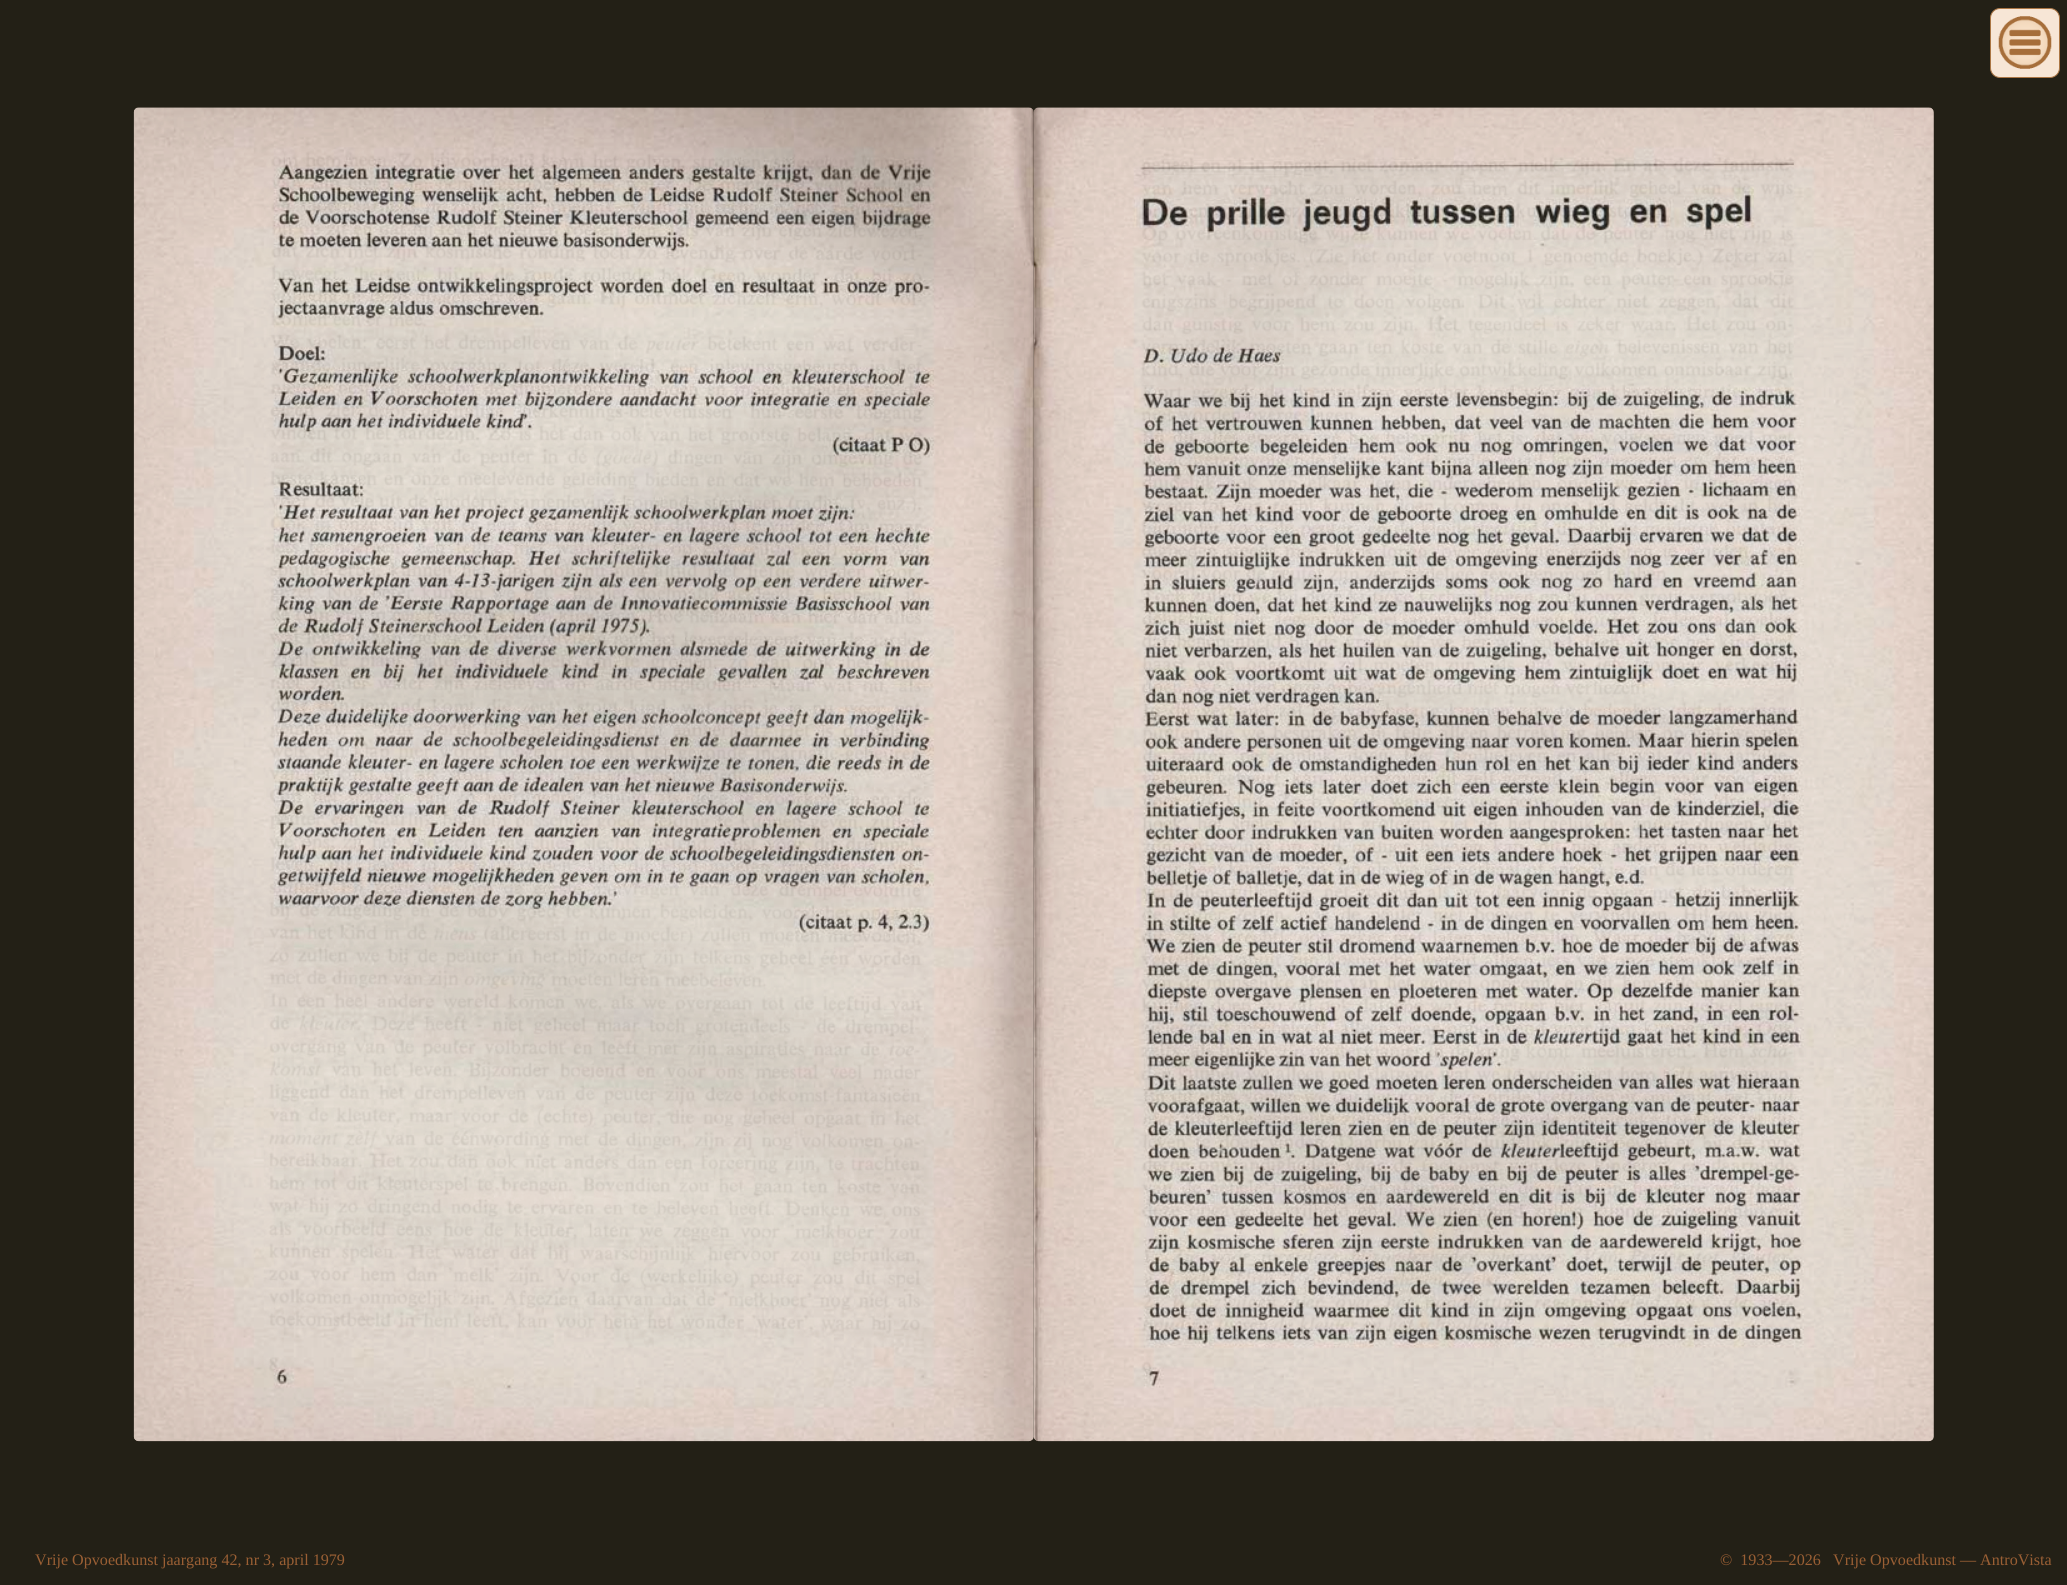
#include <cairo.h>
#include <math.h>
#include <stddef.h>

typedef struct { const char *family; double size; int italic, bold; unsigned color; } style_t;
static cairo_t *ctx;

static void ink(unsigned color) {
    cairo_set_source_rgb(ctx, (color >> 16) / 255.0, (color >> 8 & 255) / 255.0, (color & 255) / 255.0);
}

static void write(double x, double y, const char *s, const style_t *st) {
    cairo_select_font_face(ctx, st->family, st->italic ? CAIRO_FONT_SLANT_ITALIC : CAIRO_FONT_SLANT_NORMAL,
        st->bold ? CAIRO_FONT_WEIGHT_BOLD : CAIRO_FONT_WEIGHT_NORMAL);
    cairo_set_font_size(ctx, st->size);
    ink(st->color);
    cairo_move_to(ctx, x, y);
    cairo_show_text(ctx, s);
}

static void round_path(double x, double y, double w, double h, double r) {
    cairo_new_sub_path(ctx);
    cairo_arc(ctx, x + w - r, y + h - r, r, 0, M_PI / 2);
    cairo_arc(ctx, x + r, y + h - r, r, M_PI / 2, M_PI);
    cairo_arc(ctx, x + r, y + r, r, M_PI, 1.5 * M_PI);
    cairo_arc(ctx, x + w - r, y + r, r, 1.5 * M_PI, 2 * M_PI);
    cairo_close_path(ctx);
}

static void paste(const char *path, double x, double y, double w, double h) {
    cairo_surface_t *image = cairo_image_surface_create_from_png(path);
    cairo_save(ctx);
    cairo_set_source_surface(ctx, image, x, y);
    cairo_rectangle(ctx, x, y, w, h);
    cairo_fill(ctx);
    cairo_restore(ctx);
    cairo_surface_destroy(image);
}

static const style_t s1 = {"Liberation Serif", 16.1, 0, 0, 0x9a5f34};

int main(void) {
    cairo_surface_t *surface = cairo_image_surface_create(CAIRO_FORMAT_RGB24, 2067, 1585);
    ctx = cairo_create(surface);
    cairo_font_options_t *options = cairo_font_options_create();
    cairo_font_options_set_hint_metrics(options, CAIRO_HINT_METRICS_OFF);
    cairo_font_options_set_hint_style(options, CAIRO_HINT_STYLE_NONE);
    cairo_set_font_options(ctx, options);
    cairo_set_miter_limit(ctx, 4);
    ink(0x232016);
    cairo_paint(ctx);
    ink(0xf7e6d6);
    round_path(1990.5, 8.5, 69, 69, 9.5);
    cairo_fill_preserve(ctx);
    ink(0xab7644);
    cairo_set_line_width(ctx, 1);
    cairo_stroke(ctx);
    paste("pic1.png", 1998, 16, 54, 53);
    paste("pic2.png", 133, 107, 901, 1335);
    paste("pic4.png", 1033, 107, 901, 1335);
    paste("pic3.png", 133, 107, 901, 1335);
    paste("pic5.png", 1033, 107, 901, 1335);
    write(35, 1565, "Vrije Opvoedkunst jaargang 42, nr 3, april 1979", &s1);
    write(1720, 1565, "©  1933—2026", &s1);
    write(1833, 1565, "Vrije Opvoedkunst — AntroVista", &s1);
    cairo_surface_write_to_png(surface, "screenshot.png");
    cairo_font_options_destroy(options);
    cairo_destroy(ctx);
    cairo_surface_destroy(surface);
    return 0;
}
